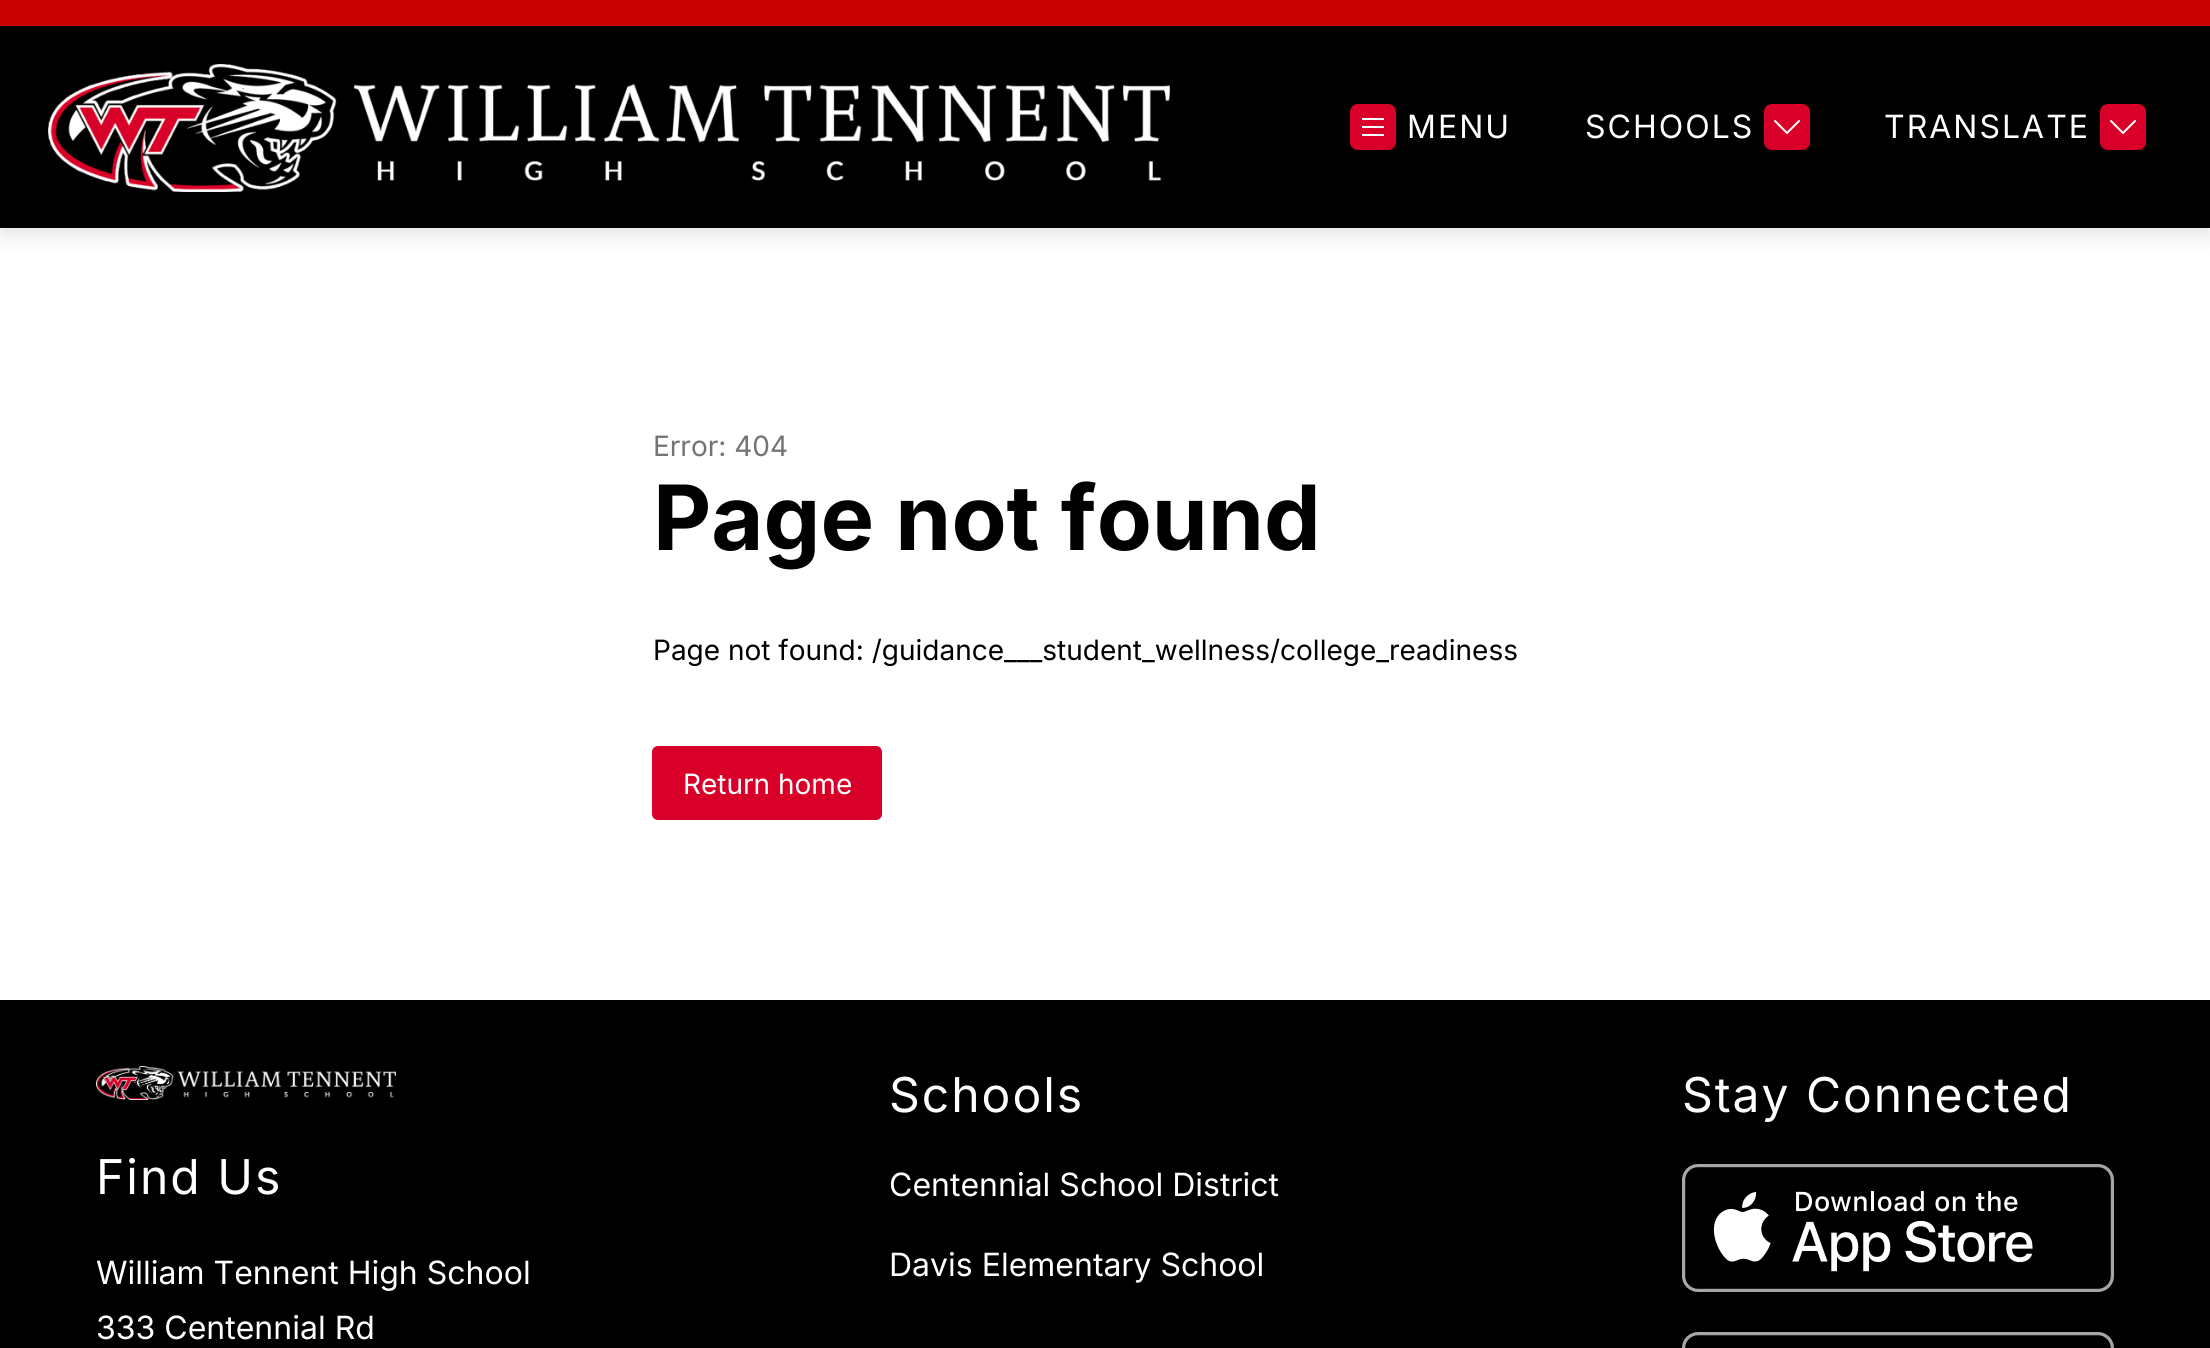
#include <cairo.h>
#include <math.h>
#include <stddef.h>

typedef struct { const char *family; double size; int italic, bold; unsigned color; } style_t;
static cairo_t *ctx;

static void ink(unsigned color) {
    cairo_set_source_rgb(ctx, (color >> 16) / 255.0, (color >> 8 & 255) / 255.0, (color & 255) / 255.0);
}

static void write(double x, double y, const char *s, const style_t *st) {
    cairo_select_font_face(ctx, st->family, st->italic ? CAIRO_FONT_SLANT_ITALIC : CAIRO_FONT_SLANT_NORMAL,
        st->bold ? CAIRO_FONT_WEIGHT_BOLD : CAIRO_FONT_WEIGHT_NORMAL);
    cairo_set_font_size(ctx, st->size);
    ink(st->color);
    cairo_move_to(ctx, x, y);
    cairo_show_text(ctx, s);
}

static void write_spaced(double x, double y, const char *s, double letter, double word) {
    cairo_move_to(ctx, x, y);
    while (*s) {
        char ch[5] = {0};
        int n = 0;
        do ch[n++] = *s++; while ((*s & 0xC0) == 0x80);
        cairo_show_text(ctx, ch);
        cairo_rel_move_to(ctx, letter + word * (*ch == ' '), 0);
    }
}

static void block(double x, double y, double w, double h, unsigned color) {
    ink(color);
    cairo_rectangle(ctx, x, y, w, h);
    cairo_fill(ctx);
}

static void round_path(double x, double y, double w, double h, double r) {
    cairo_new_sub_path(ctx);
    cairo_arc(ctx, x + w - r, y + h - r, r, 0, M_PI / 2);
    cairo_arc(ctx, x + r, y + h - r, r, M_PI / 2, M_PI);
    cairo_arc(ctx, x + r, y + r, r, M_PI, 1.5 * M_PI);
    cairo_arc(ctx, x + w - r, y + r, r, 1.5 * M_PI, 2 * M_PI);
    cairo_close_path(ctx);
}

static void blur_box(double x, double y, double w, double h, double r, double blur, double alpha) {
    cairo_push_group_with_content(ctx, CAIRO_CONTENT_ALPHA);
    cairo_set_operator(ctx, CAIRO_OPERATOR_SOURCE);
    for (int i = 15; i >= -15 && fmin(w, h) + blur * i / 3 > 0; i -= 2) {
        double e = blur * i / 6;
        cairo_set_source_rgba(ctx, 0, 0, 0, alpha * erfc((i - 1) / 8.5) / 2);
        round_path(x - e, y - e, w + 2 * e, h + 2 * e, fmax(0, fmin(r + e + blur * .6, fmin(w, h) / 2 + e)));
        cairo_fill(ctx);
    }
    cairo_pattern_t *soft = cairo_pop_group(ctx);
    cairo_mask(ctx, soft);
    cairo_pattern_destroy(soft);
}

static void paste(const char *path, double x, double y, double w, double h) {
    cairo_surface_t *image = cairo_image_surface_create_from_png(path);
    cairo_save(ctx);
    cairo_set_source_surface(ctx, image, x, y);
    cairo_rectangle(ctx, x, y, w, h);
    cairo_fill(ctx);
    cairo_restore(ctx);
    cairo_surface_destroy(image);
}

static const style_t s1 = {"Inter", 28, 0, 0, 0x747474};
static const style_t s2 = {"Inter", 90, 0, 1, 0x000000};
static const style_t s3 = {"Inter", 28, 0, 0, 0x000000};
static const style_t s4 = {"Inter", 28, 0, 0, 0xffffff};
static const style_t s5 = {"Inter", 32, 0, 0, 0xffffff};

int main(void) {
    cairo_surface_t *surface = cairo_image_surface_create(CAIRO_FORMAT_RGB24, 2210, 1348);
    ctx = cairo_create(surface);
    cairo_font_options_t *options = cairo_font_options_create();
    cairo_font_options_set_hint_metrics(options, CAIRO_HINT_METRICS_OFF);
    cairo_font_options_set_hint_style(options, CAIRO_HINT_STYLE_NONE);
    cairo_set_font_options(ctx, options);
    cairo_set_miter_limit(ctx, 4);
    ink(0xffffff);
    cairo_paint(ctx);
    ink(0x000000);
    blur_box(0, -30, 2210, 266, 0, 10, 0.1);
    block(0, 26, 2210, 202, 0x000000);
    block(0, 0, 2210, 26, 0xc80201);
    paste("pic1.png", 48, 64, 1122, 128);
    ink(0xd80029);
    round_path(1350, 104, 46, 46, 8);
    cairo_fill(ctx);
    ink(0xffffff);
    cairo_set_fill_rule(ctx, CAIRO_FILL_RULE_EVEN_ODD);
    cairo_new_path(ctx);
    cairo_move_to(ctx, 1362, 118);
    cairo_line_to(ctx, 1384, 118);
    cairo_line_to(ctx, 1384, 120);
    cairo_line_to(ctx, 1362, 120);
    cairo_close_path(ctx);
    cairo_move_to(ctx, 1362, 126);
    cairo_line_to(ctx, 1384, 126);
    cairo_line_to(ctx, 1384, 128);
    cairo_line_to(ctx, 1362, 128);
    cairo_close_path(ctx);
    cairo_move_to(ctx, 1384, 134);
    cairo_line_to(ctx, 1362, 134);
    cairo_line_to(ctx, 1362, 136);
    cairo_line_to(ctx, 1384, 136);
    cairo_close_path(ctx);
    cairo_fill(ctx);
    cairo_select_font_face(ctx, "Inter", CAIRO_FONT_SLANT_NORMAL, CAIRO_FONT_WEIGHT_NORMAL);
    cairo_set_font_size(ctx, 32);
    write_spaced(1407, 138, "MENU", 2, 0);
    write_spaced(1585, 138, "SCHOOLS", 2, 0);
    paste("pic2.png", 1764, 104, 46, 46);
    write_spaced(1884, 138, "TRANSLATE", 2, 0);
    paste("pic2.png", 2100, 104, 46, 46);
    write(653, 456, "Error: 404", &s1);
    write(653, 550, "Page not found", &s2);
    write(653, 660, "Page not found: /guidance___student_wellness/college_readiness", &s3);
    ink(0xd80029);
    round_path(652, 746, 230, 74, 6);
    cairo_fill(ctx);
    write(683, 794, "Return home", &s4);
    block(0, 1000, 2210, 348, 0x000000);
    cairo_set_font_size(ctx, 48);
    ink(0xffffff);
    write_spaced(889, 1112, "Schools", 2, 0);
    write(889, 1196, "Centennial School District", &s5);
    write(889, 1276, "Davis Elementary School", &s5);
    cairo_set_font_size(ctx, 48);
    write_spaced(1682, 1112, "Stay Connected", 2, 0);
    paste("pic3.png", 1682, 1164, 432, 128);
    paste("pic4.png", 1682, 1332, 432, 16);
    paste("pic5.png", 96, 1066, 300, 34);
    write_spaced(96, 1194, "Find Us", 2, 0);
    write(96, 1284, "William Tennent High School", &s5);
    write(96, 1339, "333 Centennial Rd", &s5);
    cairo_surface_write_to_png(surface, "screenshot.png");
    cairo_font_options_destroy(options);
    cairo_destroy(ctx);
    cairo_surface_destroy(surface);
    return 0;
}
